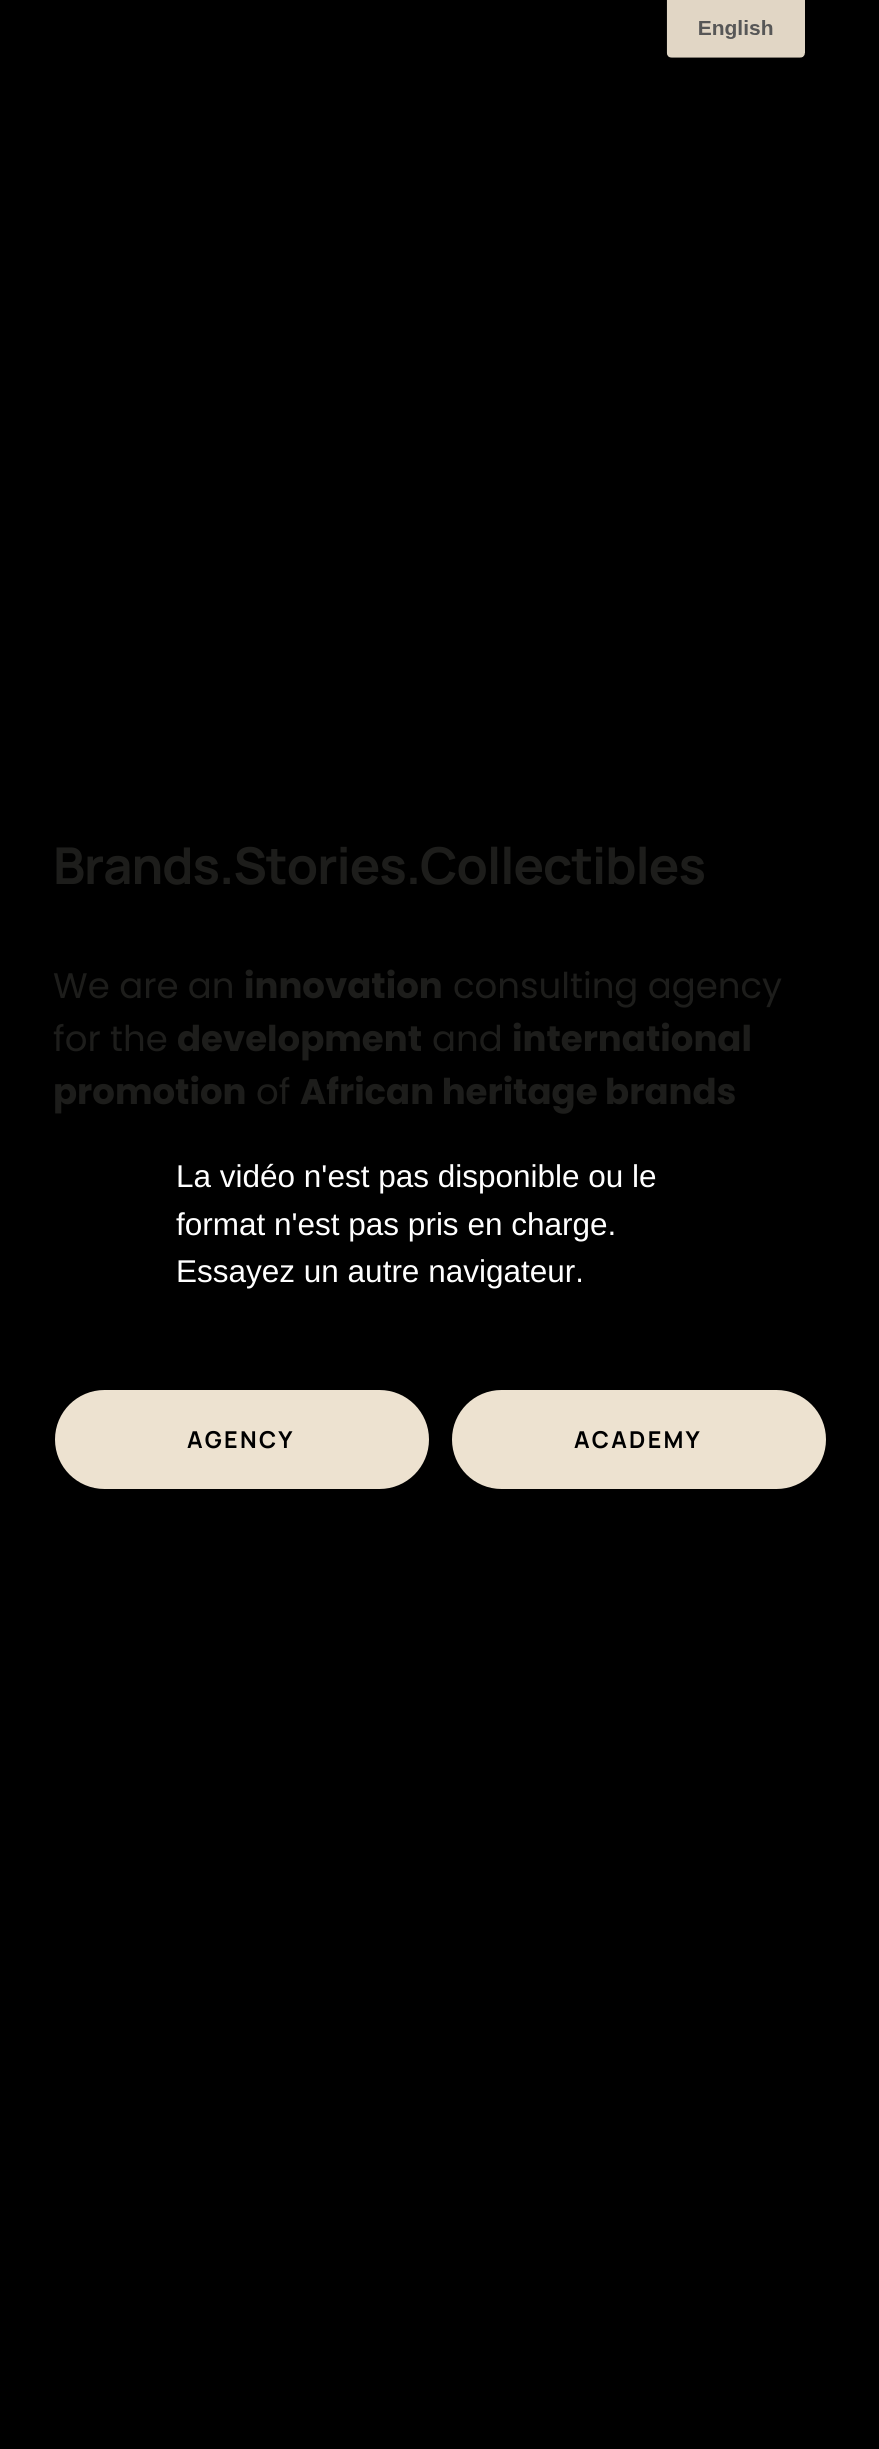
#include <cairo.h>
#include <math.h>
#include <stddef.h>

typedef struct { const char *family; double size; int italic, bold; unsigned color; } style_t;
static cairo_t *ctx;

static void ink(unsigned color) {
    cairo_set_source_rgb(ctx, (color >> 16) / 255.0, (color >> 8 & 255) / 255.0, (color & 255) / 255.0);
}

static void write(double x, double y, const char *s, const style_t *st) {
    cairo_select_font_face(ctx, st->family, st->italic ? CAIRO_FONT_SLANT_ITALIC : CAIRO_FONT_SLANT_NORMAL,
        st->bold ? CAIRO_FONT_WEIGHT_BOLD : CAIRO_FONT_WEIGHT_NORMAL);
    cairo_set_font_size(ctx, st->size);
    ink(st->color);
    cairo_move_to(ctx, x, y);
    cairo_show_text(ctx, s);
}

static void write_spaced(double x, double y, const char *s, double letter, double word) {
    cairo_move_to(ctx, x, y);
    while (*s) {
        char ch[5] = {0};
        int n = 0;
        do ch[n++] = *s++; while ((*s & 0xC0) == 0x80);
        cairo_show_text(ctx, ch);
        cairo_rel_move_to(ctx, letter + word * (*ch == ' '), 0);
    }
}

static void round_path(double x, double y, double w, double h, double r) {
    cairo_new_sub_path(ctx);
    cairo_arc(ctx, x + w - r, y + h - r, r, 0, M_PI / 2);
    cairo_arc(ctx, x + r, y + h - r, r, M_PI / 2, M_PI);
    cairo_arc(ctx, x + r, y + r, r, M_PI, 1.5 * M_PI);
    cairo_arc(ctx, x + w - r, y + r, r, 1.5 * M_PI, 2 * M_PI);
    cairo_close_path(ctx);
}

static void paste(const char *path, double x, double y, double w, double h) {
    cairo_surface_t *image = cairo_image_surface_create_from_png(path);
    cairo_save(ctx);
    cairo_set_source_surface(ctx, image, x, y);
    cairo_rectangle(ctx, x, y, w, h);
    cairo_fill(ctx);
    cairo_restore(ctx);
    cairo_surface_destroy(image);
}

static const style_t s1 = {"Poppins", 35.5, 0, 0, 0x1d1d1b};
static const style_t s2 = {"Poppins", 35.5, 0, 1, 0x1d1d1b};
static const style_t s3 = {"Liberation Sans", 31.5, 0, 0, 0xffffff};

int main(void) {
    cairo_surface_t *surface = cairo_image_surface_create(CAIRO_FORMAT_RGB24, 879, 2449);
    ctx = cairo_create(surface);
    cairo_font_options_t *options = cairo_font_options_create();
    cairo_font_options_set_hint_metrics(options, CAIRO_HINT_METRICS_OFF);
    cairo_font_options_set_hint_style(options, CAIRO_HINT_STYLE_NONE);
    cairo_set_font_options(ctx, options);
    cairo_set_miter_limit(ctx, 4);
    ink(0x000000);
    cairo_paint(ctx);
    paste("pic1.png", 666, 0, 139, 58);
    cairo_select_font_face(ctx, "Manrope", CAIRO_FONT_SLANT_NORMAL, CAIRO_FONT_WEIGHT_BOLD);
    cairo_set_font_size(ctx, 50.75);
    ink(0x1d1d1b);
    write_spaced(53, 884, "Brands.Stories.Collectibles", -1, 0);
    write(53, 998, "We are an", &s1);
    write(244, 998, "innovation", &s2);
    write(453, 998, "consulting agency", &s1);
    write(53, 1051, "for the", &s1);
    write(177, 1051, "development", &s2);
    write(432, 1051, "and", &s1);
    write(512, 1051, "international", &s2);
    write(53, 1104, "promotion", &s2);
    write(256, 1104, "of", &s1);
    write(300, 1104, "African heritage brands", &s2);
    ink(0xede2d0);
    round_path(54, 1389, 376, 101, 50.5);
    cairo_fill_preserve(ctx);
    ink(0x000000);
    cairo_stroke(ctx);
    cairo_select_font_face(ctx, "Manrope", CAIRO_FONT_SLANT_NORMAL, CAIRO_FONT_WEIGHT_BOLD);
    cairo_set_font_size(ctx, 23.25);
    write_spaced(187, 1448, "AGENCY", 2.25, 0);
    ink(0xede2d0);
    round_path(451, 1389, 376, 101, 50.5);
    cairo_fill_preserve(ctx);
    ink(0x000000);
    cairo_stroke(ctx);
    write_spaced(574, 1448, "ACADEMY", 2.25, 0);
    write(176, 1187, "La vidéo n'est pas disponible ou le", &s3);
    write(176, 1235, "format n'est pas pris en charge.", &s3);
    write(176, 1282, "Essayez un autre navigateur.", &s3);
    cairo_surface_write_to_png(surface, "screenshot.png");
    cairo_font_options_destroy(options);
    cairo_destroy(ctx);
    cairo_surface_destroy(surface);
    return 0;
}
